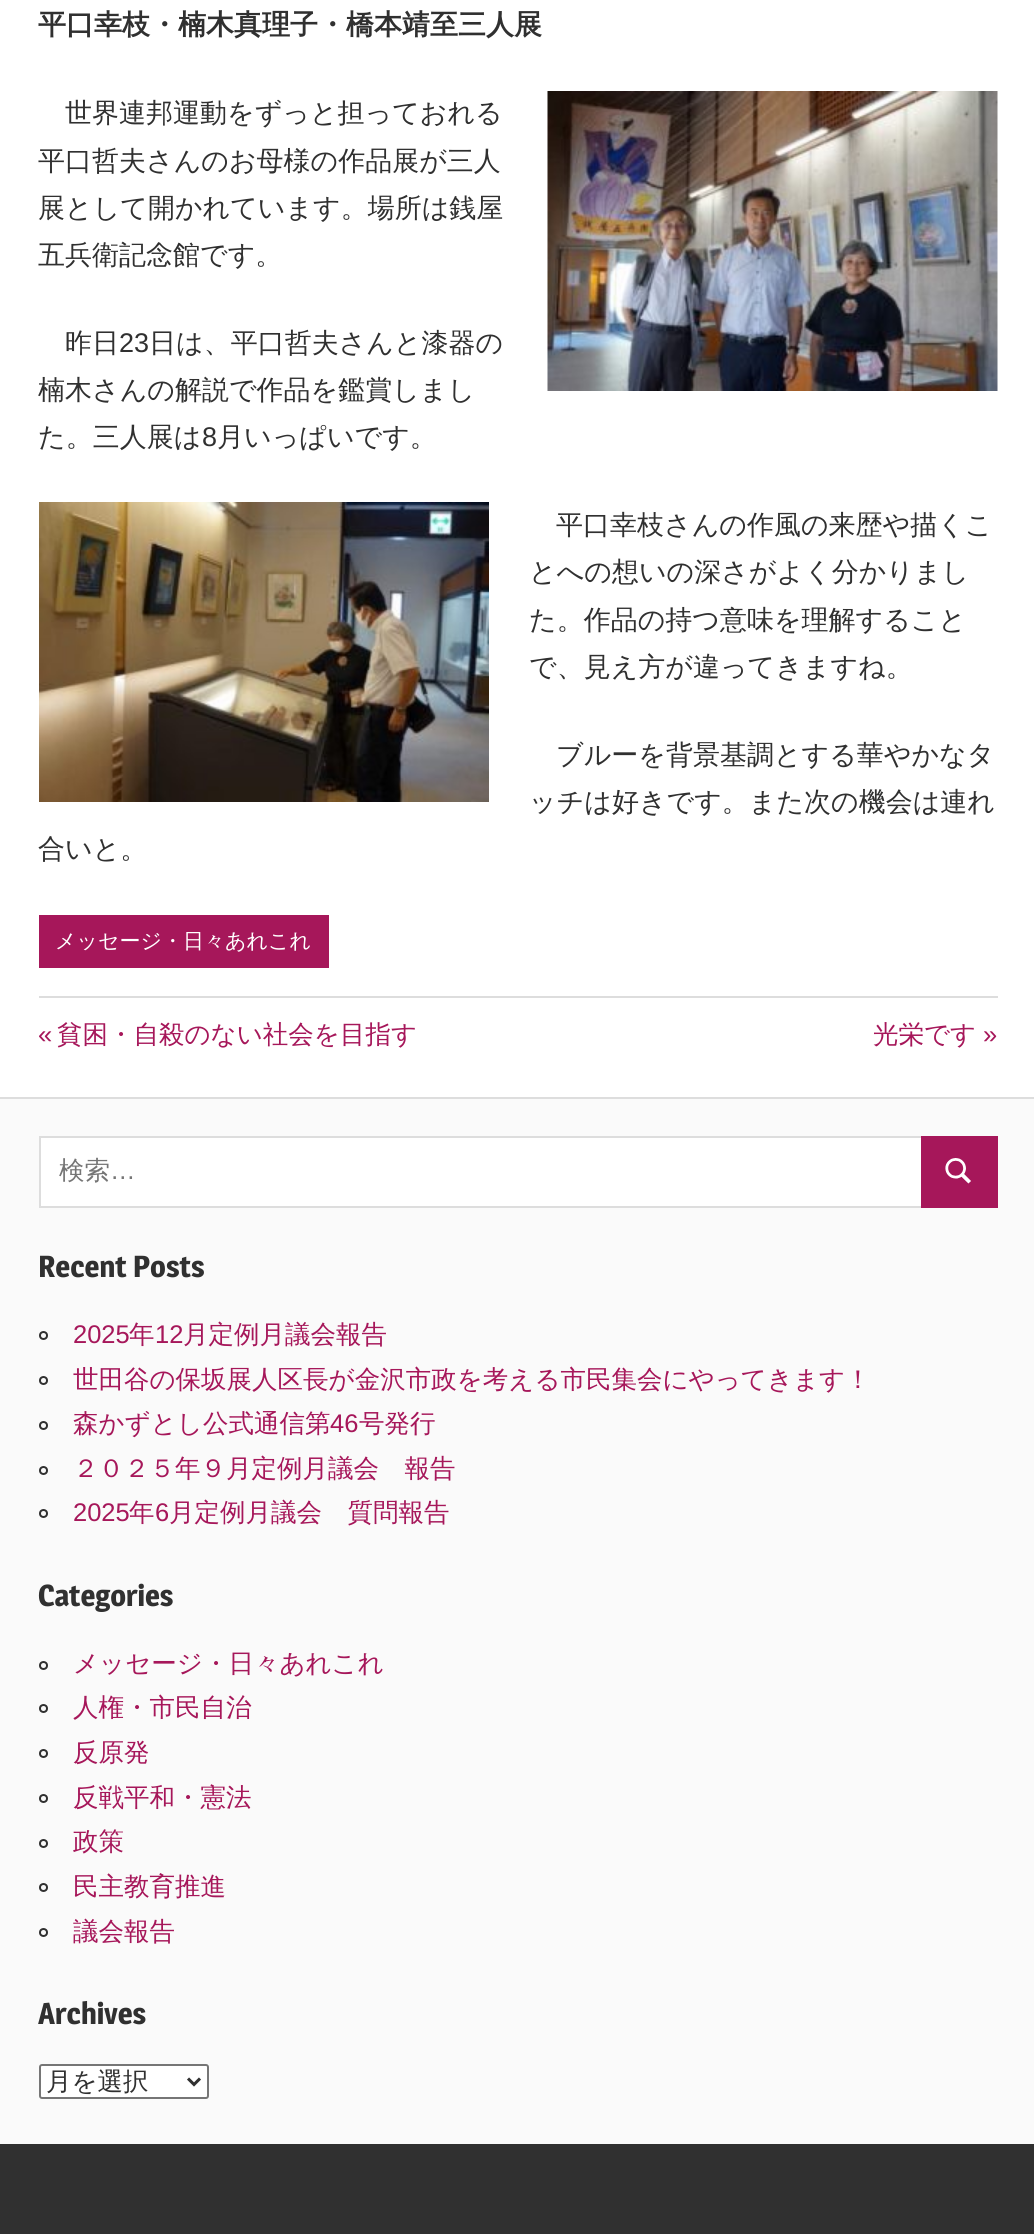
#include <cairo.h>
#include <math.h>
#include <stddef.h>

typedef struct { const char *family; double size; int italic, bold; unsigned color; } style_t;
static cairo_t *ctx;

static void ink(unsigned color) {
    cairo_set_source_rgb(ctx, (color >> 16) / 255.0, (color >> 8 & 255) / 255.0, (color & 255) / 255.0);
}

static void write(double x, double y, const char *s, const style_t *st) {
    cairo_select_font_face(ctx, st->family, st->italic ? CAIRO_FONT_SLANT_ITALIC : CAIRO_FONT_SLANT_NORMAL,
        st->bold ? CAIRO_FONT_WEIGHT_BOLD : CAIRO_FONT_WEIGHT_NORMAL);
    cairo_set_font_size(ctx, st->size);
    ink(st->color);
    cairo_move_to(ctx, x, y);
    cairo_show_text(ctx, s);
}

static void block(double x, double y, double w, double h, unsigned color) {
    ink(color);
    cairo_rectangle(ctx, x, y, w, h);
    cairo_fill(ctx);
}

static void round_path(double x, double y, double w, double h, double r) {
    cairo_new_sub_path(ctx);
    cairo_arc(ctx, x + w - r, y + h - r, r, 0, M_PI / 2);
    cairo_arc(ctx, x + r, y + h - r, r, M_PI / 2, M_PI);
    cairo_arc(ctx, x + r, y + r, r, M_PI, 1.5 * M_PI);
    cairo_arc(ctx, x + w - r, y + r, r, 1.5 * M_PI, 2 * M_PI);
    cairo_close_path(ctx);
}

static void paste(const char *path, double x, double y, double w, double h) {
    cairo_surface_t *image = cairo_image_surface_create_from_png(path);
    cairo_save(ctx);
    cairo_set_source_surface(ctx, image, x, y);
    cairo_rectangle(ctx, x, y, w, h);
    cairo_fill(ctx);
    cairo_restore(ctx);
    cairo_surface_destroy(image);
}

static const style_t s1 = {"WenQuanYi Zen Hei", 28, 0, 1, 0x303030};
static const style_t s2 = {"WenQuanYi Zen Hei Medium", 27, 0, 0, 0x303030};
static const style_t s3 = {"Liberation Sans", 27, 0, 0, 0x303030};
static const style_t s4 = {"WenQuanYi Zen Hei Medium", 21, 0, 0, 0xffffff};
static const style_t s5 = {"Liberation Sans", 25.5, 0, 0, 0xa6175a};
static const style_t s6 = {"WenQuanYi Zen Hei Medium", 25.5, 0, 0, 0xa6175a};
static const style_t s7 = {"WenQuanYi Zen Hei Medium", 25.5, 0, 0, 0x757575};
static const style_t s8 = {"Liberation Sans", 25.5, 0, 0, 0x757575};
static const style_t s9 = {"Magra", 30, 0, 1, 0x303030};
static const style_t s10 = {"WenQuanYi Zen Hei Medium", 25.5, 0, 0, 0x303030};

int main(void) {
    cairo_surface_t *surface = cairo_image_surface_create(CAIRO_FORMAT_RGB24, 1034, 2234);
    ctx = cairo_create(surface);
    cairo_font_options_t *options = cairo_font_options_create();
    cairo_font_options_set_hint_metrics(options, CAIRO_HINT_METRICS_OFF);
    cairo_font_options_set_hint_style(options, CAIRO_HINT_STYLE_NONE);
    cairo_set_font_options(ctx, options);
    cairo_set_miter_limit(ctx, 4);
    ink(0xffffff);
    cairo_paint(ctx);
    write(38, 34, "平口幸枝・楠木真理子・橋本靖至三人展", &s1);
    write(65, 122, "世界連邦運動をずっと担っておれる", &s2);
    paste("pic1.png", 547, 91, 451, 300);
    write(38, 170, "平口哲夫さんのお母様の作品展が三人", &s2);
    write(38, 217, "展として開かれています。場所は銭屋", &s2);
    write(38, 264, "五兵衛記念館です。", &s2);
    write(65, 352, "昨日", &s2);
    write(119, 352, "23", &s3);
    write(149, 352, "日は、平口哲夫さんと漆器の", &s2);
    write(38, 399, "楠木さんの解説で作品を鑑賞しまし", &s2);
    write(38, 446, "た。三人展は", &s2);
    write(202, 446, "8", &s3);
    write(217, 446, "月いっぱいです。", &s2);
    paste("pic2.png", 39, 502, 450, 300);
    write(556, 534, "平口幸枝さんの作風の来歴や描くこ", &s2);
    write(529, 581, "とへの想いの深さがよく分かりまし", &s2);
    write(529, 629, "た。作品の持つ意味を理解すること", &s2);
    write(529, 676, "で、見え方が違ってきますね。", &s2);
    write(556, 764, "ブルーを背景基調とする華やかなタ", &s2);
    write(529, 811, "ッチは好きです。また次の機会は連れ", &s2);
    write(38, 858, "合いと。", &s2);
    block(39, 915, 290, 53, 0xa6175a);
    write(55, 948, "メッセージ・日々あれこれ", &s4);
    block(39, 996, 959, 2, 0xdddddd);
    write(38, 1043, "«", &s5);
    write(57, 1043, "貧困・自殺のない社会を目指す", &s6);
    write(873, 1043, "光栄です", &s6);
    write(983, 1043, "»", &s5);
    block(0, 1099, 1034, 1045, 0xfafafa);
    block(0, 1097, 1034, 2, 0xdddddd);
    ink(0xffffff);
    cairo_rectangle(ctx, 40, 1137, 882, 70);
    cairo_fill_preserve(ctx);
    ink(0xdddddd);
    cairo_stroke(ctx);
    write(59, 1179, "検索", &s7);
    write(110, 1179, "…", &s8);
    block(921, 1136, 77, 72, 0xa6175a);
    paste("pic3.png", 945, 1158, 26, 26);
    write(38, 1277, "Recent Posts", &s9);
    cairo_new_path(ctx);
    cairo_arc(ctx, 43.5, 1335.5, 3.5, 0, 2 * M_PI);
    cairo_stroke(ctx);
    write(73, 1343, "2025", &s5);
    write(129, 1343, "年", &s6);
    write(155, 1343, "12", &s5);
    write(183, 1343, "月定例月議会報告", &s6);
    cairo_new_path(ctx);
    cairo_arc(ctx, 43.5, 1380.5, 3.5, 0, 2 * M_PI);
    ink(0x303030);
    cairo_stroke(ctx);
    write(73, 1388, "世田谷の保坂展人区長が金沢市政を考える市民集会にやってきます！", &s6);
    cairo_new_path(ctx);
    cairo_arc(ctx, 43.5, 1425.5, 3.5, 0, 2 * M_PI);
    ink(0x303030);
    cairo_stroke(ctx);
    write(73, 1432, "森かずとし公式通信第", &s6);
    write(330, 1432, "46", &s5);
    write(359, 1432, "号発行", &s6);
    cairo_new_path(ctx);
    cairo_arc(ctx, 43.5, 1470.5, 3.5, 0, 2 * M_PI);
    ink(0x303030);
    cairo_stroke(ctx);
    write(73, 1477, "２０２５年９月定例月議会　報告", &s6);
    cairo_new_path(ctx);
    cairo_arc(ctx, 43.5, 1513.5, 3.5, 0, 2 * M_PI);
    ink(0x303030);
    cairo_stroke(ctx);
    write(73, 1521, "2025", &s5);
    write(129, 1521, "年", &s6);
    write(155, 1521, "6", &s5);
    write(169, 1521, "月定例月議会　質問報告", &s6);
    write(38, 1606, "Categories", &s9);
    cairo_new_path(ctx);
    cairo_arc(ctx, 43.5, 1665.5, 3.5, 0, 2 * M_PI);
    cairo_stroke(ctx);
    write(73, 1672, "メッセージ・日々あれこれ", &s6);
    cairo_new_path(ctx);
    cairo_arc(ctx, 43.5, 1708.5, 3.5, 0, 2 * M_PI);
    ink(0x303030);
    cairo_stroke(ctx);
    write(73, 1716, "人権・市民自治", &s6);
    cairo_new_path(ctx);
    cairo_arc(ctx, 43.5, 1753.5, 3.5, 0, 2 * M_PI);
    ink(0x303030);
    cairo_stroke(ctx);
    write(73, 1761, "反原発", &s6);
    cairo_new_path(ctx);
    cairo_arc(ctx, 43.5, 1798.5, 3.5, 0, 2 * M_PI);
    ink(0x303030);
    cairo_stroke(ctx);
    write(73, 1806, "反戦平和・憲法", &s6);
    cairo_new_path(ctx);
    cairo_arc(ctx, 43.5, 1843.5, 3.5, 0, 2 * M_PI);
    ink(0x303030);
    cairo_stroke(ctx);
    write(73, 1850, "政策", &s6);
    cairo_new_path(ctx);
    cairo_arc(ctx, 43.5, 1887.5, 3.5, 0, 2 * M_PI);
    ink(0x303030);
    cairo_stroke(ctx);
    write(73, 1895, "民主教育推進", &s6);
    cairo_new_path(ctx);
    cairo_arc(ctx, 43.5, 1932.5, 3.5, 0, 2 * M_PI);
    ink(0x303030);
    cairo_stroke(ctx);
    write(73, 1940, "議会報告", &s6);
    write(38, 2024, "Archives", &s9);
    ink(0xffffff);
    round_path(40, 2065, 168, 33, 2);
    cairo_fill_preserve(ctx);
    ink(0x767676);
    cairo_stroke(ctx);
    cairo_new_path(ctx);
    cairo_move_to(ctx, 188, 2078.5);
    cairo_line_to(ctx, 194, 2084.5);
    cairo_line_to(ctx, 200, 2078.5);
    ink(0x303030);
    cairo_set_line_width(ctx, 3);
    cairo_stroke(ctx);
    write(46, 2090, "月を選択", &s10);
    block(0, 2144, 1034, 90, 0x303030);
    cairo_surface_write_to_png(surface, "screenshot.png");
    cairo_font_options_destroy(options);
    cairo_destroy(ctx);
    cairo_surface_destroy(surface);
    return 0;
}
